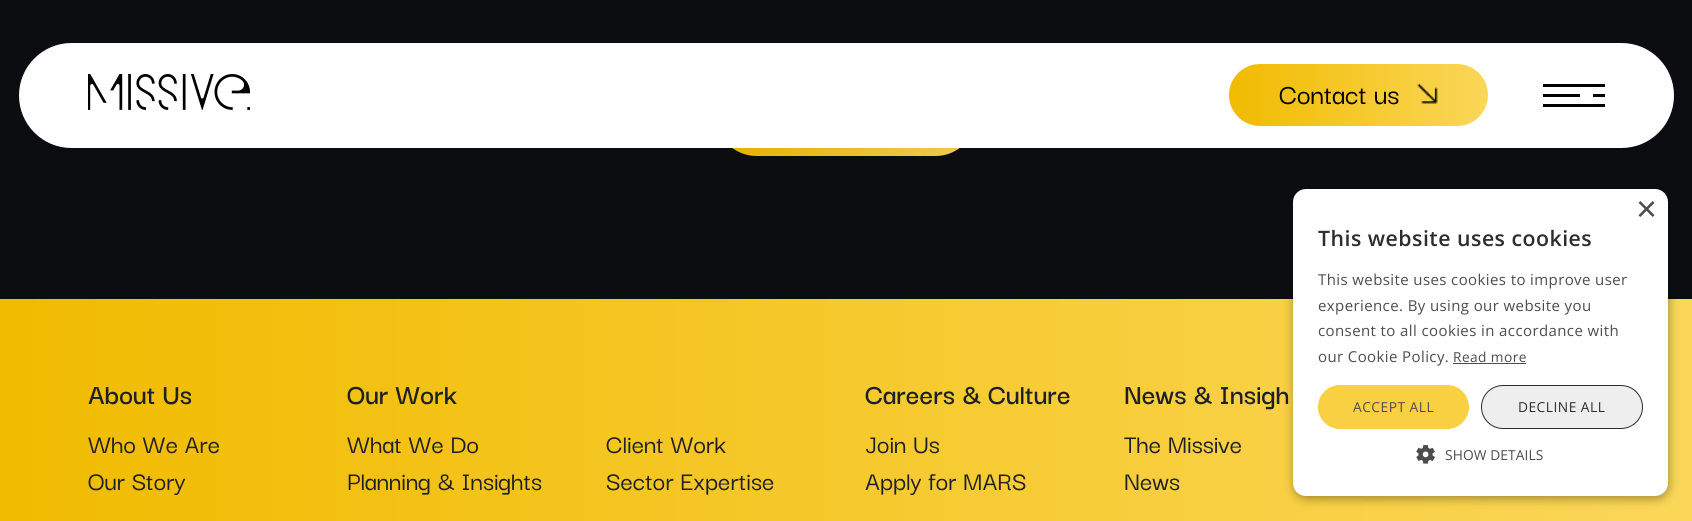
#include <cairo.h>
#include <math.h>
#include <stddef.h>

typedef struct { const char *family; double size; int italic, bold; unsigned color; } style_t;
static cairo_t *ctx;

static void ink(unsigned color) {
    cairo_set_source_rgb(ctx, (color >> 16) / 255.0, (color >> 8 & 255) / 255.0, (color & 255) / 255.0);
}

static void write(double x, double y, const char *s, const style_t *st) {
    cairo_select_font_face(ctx, st->family, st->italic ? CAIRO_FONT_SLANT_ITALIC : CAIRO_FONT_SLANT_NORMAL,
        st->bold ? CAIRO_FONT_WEIGHT_BOLD : CAIRO_FONT_WEIGHT_NORMAL);
    cairo_set_font_size(ctx, st->size);
    ink(st->color);
    cairo_move_to(ctx, x, y);
    cairo_show_text(ctx, s);
}

static void write_spaced(double x, double y, const char *s, double letter, double word) {
    cairo_move_to(ctx, x, y);
    while (*s) {
        char ch[5] = {0};
        int n = 0;
        do ch[n++] = *s++; while ((*s & 0xC0) == 0x80);
        cairo_show_text(ctx, ch);
        cairo_rel_move_to(ctx, letter + word * (*ch == ' '), 0);
    }
}

static void block(double x, double y, double w, double h, unsigned color) {
    ink(color);
    cairo_rectangle(ctx, x, y, w, h);
    cairo_fill(ctx);
}

static void round_path(double x, double y, double w, double h, double r) {
    cairo_new_sub_path(ctx);
    cairo_arc(ctx, x + w - r, y + h - r, r, 0, M_PI / 2);
    cairo_arc(ctx, x + r, y + h - r, r, M_PI / 2, M_PI);
    cairo_arc(ctx, x + r, y + r, r, M_PI, 1.5 * M_PI);
    cairo_arc(ctx, x + w - r, y + r, r, 1.5 * M_PI, 2 * M_PI);
    cairo_close_path(ctx);
}

static void blur_box(double x, double y, double w, double h, double r, double blur, double alpha) {
    cairo_push_group_with_content(ctx, CAIRO_CONTENT_ALPHA);
    cairo_set_operator(ctx, CAIRO_OPERATOR_SOURCE);
    for (int i = 15; i >= -15 && fmin(w, h) + blur * i / 3 > 0; i -= 2) {
        double e = blur * i / 6;
        cairo_set_source_rgba(ctx, 0, 0, 0, alpha * erfc((i - 1) / 8.5) / 2);
        round_path(x - e, y - e, w + 2 * e, h + 2 * e, fmax(0, fmin(r + e + blur * .6, fmin(w, h) / 2 + e)));
        cairo_fill(ctx);
    }
    cairo_pattern_t *soft = cairo_pop_group(ctx);
    cairo_mask(ctx, soft);
    cairo_pattern_destroy(soft);
}

static void paste(const char *path, double x, double y, double w, double h) {
    cairo_surface_t *image = cairo_image_surface_create_from_png(path);
    cairo_save(ctx);
    cairo_set_source_surface(ctx, image, x, y);
    cairo_rectangle(ctx, x, y, w, h);
    cairo_fill(ctx);
    cairo_restore(ctx);
    cairo_surface_destroy(image);
}

static const style_t s1 = {"Darker Grotesque Medium", 30, 0, 0, 0x010101};
static const style_t s2 = {"Darker Grotesque SemiBold", 30, 0, 0, 0x1d2027};
static const style_t s3 = {"Darker Grotesque Medium", 27.5, 0, 0, 0x1d2027};
static const style_t s4 = {"Liberation Sans", 36, 0, 0, 0x4d4d4d};

int main(void) {
    cairo_surface_t *surface = cairo_image_surface_create(CAIRO_FORMAT_RGB24, 1692, 521);
    ctx = cairo_create(surface);
    cairo_font_options_t *options = cairo_font_options_create();
    cairo_font_options_set_hint_metrics(options, CAIRO_HINT_METRICS_OFF);
    cairo_font_options_set_hint_style(options, CAIRO_HINT_STYLE_NONE);
    cairo_set_font_options(ctx, options);
    cairo_set_miter_limit(ctx, 4);
    cairo_pattern_t *gradient;
    ink(0xffffff);
    cairo_paint(ctx);
    block(0, 0, 1692, 299, 0x0c0d10);
    gradient = cairo_pattern_create_linear(716, 116, 976, 116);
    cairo_pattern_add_color_stop_rgba(gradient, 0, 0.945, 0.733, 0, 1);
    cairo_pattern_add_color_stop_rgba(gradient, 1, 0.984, 0.843, 0.349, 1);
    cairo_set_source(ctx, gradient);
    cairo_pattern_destroy(gradient);
    round_path(716, 75, 260, 81, 40.5);
    cairo_fill(ctx);
    ink(0x000000);
    blur_box(19, 53, 1655, 105, 52.5, 10, 0.07);
    ink(0xffffff);
    round_path(19, 43, 1655, 105, 52.5);
    cairo_fill(ctx);
    paste("pic1.png", 88, 74, 162, 36);
    gradient = cairo_pattern_create_linear(1229, 95, 1488, 95);
    cairo_pattern_add_color_stop_rgba(gradient, 0, 0.945, 0.733, 0, 1);
    cairo_pattern_add_color_stop_rgba(gradient, 1, 0.984, 0.843, 0.349, 1);
    cairo_set_source(ctx, gradient);
    cairo_pattern_destroy(gradient);
    round_path(1229, 64, 259, 62, 31);
    cairo_fill(ctx);
    write(1279, 104, "Contact us", &s1);
    paste("pic2.png", 1417, 83, 21, 21);
    block(1543, 84, 62, 3, 0x000000);
    block(1543, 94, 37, 3, 0x000000);
    block(1593, 94, 12, 3, 0x000000);
    block(1543, 104, 62, 3, 0x000000);
    gradient = cairo_pattern_create_linear(0, 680, 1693, 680);
    cairo_pattern_add_color_stop_rgba(gradient, 0, 0.945, 0.733, 0, 1);
    cairo_pattern_add_color_stop_rgba(gradient, 1, 0.984, 0.843, 0.349, 1);
    cairo_set_source(ctx, gradient);
    cairo_pattern_destroy(gradient);
    cairo_rectangle(ctx, 0, 299, 1692, 222);
    cairo_fill(ctx);
    write(88, 404, "About Us", &s2);
    write(88, 453, "Who We Are", &s3);
    write(88, 490, "Our Story", &s3);
    write(347, 404, "Our Work", &s2);
    write(347, 453, "What We Do", &s3);
    write(347, 490, "Planning & Insights", &s3);
    write(606, 453, "Client Work", &s3);
    write(606, 490, "Sector Expertise", &s3);
    write(865, 404, "Careers & Culture", &s2);
    write(865, 453, "Join Us", &s3);
    write(865, 490, "Apply for MARS", &s3);
    write(1124, 404, "News & Insigh", &s2);
    write(1124, 453, "The Missive", &s3);
    write(1124, 490, "News", &s3);
    ink(0x000000);
    blur_box(1294, 191, 375, 308, 13, 5, 0.35);
    ink(0xffffff);
    round_path(1293, 189, 375, 307, 13);
    cairo_fill(ctx);
    write(1636, 221, "×", &s4);
    cairo_select_font_face(ctx, "Open Sans SemiBold", CAIRO_FONT_SLANT_NORMAL, CAIRO_FONT_WEIGHT_NORMAL);
    cairo_set_font_size(ctx, 21.25);
    ink(0x2d2d2d);
    write_spaced(1318, 246, "This website uses cookies", 0.5, 0);
    cairo_select_font_face(ctx, "Open Sans", CAIRO_FONT_SLANT_NORMAL, CAIRO_FONT_WEIGHT_NORMAL);
    cairo_set_font_size(ctx, 15);
    ink(0x4d4d4d);
    write_spaced(1318, 285, "This website uses cookies to improve user", 0.4, 0);
    write_spaced(1318, 311, "experience. By using our website you", 0.4, 0);
    write_spaced(1318, 336, "consent to all cookies in accordance with", 0.4, 0);
    write_spaced(1318, 362, "our Cookie Policy.", 0.4, 0);
    cairo_set_font_size(ctx, 13.75);
    write_spaced(1453, 362, "Read more", 0.4, 0);
    block(1453, 363, 73, 1, 0x4d4d4d);
    ink(0xf9d041);
    round_path(1318, 385, 151, 44, 22);
    cairo_fill(ctx);
    ink(0x4d4d4d);
    write_spaced(1353, 412, "ACCEPT ALL", 0.5, 0);
    ink(0xeeeeee);
    round_path(1481.5, 385.5, 161, 43, 21.5);
    cairo_fill_preserve(ctx);
    ink(0x2d2d2d);
    cairo_set_line_width(ctx, 1);
    cairo_stroke(ctx);
    write_spaced(1518, 412, "DECLINE ALL", 0.5, 0);
    paste("pic3.png", 1416, 445, 19, 19);
    ink(0x4d4d4d);
    write_spaced(1445, 460, "SHOW DETAILS", 0.1, 0);
    cairo_surface_write_to_png(surface, "screenshot.png");
    cairo_font_options_destroy(options);
    cairo_destroy(ctx);
    cairo_surface_destroy(surface);
    return 0;
}
